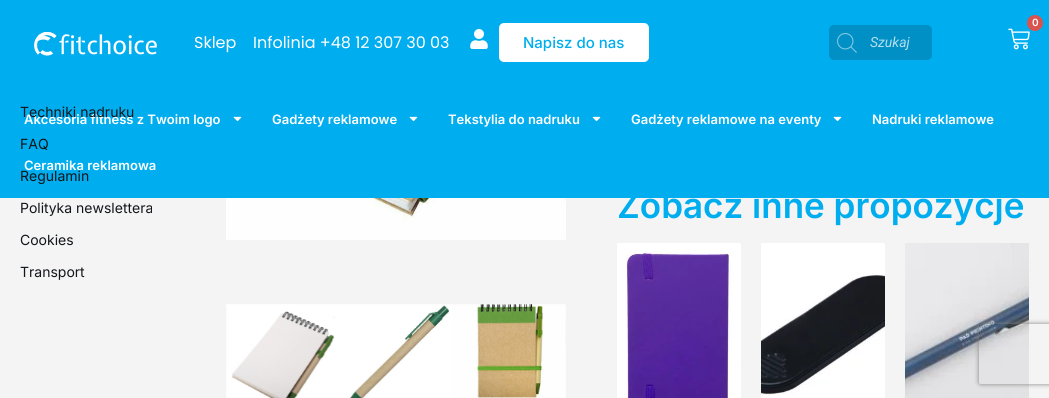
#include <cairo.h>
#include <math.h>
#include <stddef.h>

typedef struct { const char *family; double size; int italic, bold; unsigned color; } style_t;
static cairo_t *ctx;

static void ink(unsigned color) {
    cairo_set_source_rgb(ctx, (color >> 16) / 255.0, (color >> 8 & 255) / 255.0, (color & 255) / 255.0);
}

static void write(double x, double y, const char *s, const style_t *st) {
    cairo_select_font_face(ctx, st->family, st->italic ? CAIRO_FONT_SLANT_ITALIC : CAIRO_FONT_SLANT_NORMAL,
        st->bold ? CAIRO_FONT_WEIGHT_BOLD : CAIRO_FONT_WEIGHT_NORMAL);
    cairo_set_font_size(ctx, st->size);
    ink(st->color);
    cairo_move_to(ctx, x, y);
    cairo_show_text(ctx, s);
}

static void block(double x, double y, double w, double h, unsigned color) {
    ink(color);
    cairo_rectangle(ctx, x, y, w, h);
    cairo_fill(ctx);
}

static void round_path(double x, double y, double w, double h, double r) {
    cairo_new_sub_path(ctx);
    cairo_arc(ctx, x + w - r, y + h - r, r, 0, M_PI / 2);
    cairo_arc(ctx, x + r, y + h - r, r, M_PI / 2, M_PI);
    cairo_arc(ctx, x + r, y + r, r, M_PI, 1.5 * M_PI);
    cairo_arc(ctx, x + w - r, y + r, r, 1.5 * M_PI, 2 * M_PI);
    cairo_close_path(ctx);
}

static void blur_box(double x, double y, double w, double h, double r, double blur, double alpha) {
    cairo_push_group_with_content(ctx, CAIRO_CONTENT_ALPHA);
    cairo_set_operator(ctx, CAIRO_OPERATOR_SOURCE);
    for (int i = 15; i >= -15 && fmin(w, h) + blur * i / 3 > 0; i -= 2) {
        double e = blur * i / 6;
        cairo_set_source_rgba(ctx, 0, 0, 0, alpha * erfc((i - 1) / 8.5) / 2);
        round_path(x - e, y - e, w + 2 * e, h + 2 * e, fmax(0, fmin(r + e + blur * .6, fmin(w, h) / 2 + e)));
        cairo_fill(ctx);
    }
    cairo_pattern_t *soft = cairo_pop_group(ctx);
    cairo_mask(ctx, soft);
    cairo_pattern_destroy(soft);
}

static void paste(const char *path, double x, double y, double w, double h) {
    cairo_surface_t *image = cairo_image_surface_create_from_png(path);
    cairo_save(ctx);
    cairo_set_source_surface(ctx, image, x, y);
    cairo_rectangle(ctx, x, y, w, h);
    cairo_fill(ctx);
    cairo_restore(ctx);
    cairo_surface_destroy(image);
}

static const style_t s1 = {"Inter SemiBold", 10, 0, 0, 0xffffff};
static const style_t s2 = {"Poppins", 16, 0, 0, 0xffffff};
static const style_t s3 = {"Inter Medium", 15, 0, 0, 0x00adee};
static const style_t s4 = {"Roboto", 14, 1, 0, 0xb3deee};
static const style_t s5 = {"Inter SemiBold", 13, 0, 0, 0xffffff};
static const style_t s6 = {"Inter", 14, 0, 0, 0x12151a};
static const style_t s7 = {"Inter SemiBold", 35, 0, 0, 0x00adee};

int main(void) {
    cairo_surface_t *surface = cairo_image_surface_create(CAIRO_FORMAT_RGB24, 1049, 398);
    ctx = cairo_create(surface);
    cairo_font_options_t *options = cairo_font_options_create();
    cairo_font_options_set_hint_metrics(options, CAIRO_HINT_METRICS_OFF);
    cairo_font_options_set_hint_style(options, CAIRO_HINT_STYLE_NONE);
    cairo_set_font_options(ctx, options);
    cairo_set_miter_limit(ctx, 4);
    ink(0xf4f4f4);
    cairo_paint(ctx);
    block(0, 0, 1049, 198, 0x00adee);
    paste("pic1.png", 1008, 28, 22, 22);
    ink(0xd9534f);
    cairo_arc(ctx, 1035, 23, 8, 0, 2 * M_PI);
    cairo_fill(ctx);
    write(1032, 26, "0", &s1);
    paste("pic2.png", 34, 32, 123, 24);
    write(194, 48, "Sklep", &s2);
    write(253, 48, "Infolinia +48 12 307 30 03", &s2);
    paste("pic3.png", 470, 29, 18, 20);
    round_path(499, 23, 150, 39, 5);
    cairo_fill(ctx);
    write(523, 48, "Napisz do nas", &s3);
    ink(0x0090c6);
    round_path(829.5, 25.5, 102, 34, 4.5);
    cairo_fill_preserve(ctx);
    cairo_set_line_width(ctx, 1);
    cairo_stroke(ctx);
    paste("pic4.png", 837, 33, 20, 20);
    write(870, 47, "Szukaj", &s4);
    write(24, 124, "Akcesoria fitness z Twoim logo", &s5);
    paste("pic5.png", 233, 116, 9, 6);
    write(272, 124, "Gadżety reklamowe", &s5);
    paste("pic5.png", 409, 116, 9, 6);
    write(448, 124, "Tekstylia do nadruku", &s5);
    paste("pic5.png", 592, 116, 9, 6);
    write(631, 124, "Gadżety reklamowe na eventy", &s5);
    paste("pic5.png", 833, 116, 9, 6);
    write(872, 124, "Nadruki reklamowe", &s5);
    write(24, 170, "Ceramika reklamowa", &s5);
    write(20, 117, "Techniki nadruku", &s6);
    write(20, 149, "FAQ", &s6);
    write(20, 181, "Regulamin", &s6);
    write(20, 213, "Polityka newslettera", &s6);
    write(20, 245, "Cookies", &s6);
    write(20, 277, "Transport", &s6);
    paste("pic6.png", 226, 198, 340, 42);
    paste("pic7.png", 226, 304, 113, 94);
    paste("pic8.png", 339, 304, 113, 94);
    paste("pic9.png", 452, 304, 114, 94);
    paste("pic10.png", 565, 321, 1, 24);
    write(617, 218, "Zobacz inne propozycje", &s7);
    paste("pic11.png", 617, 243, 124, 155);
    paste("pic12.png", 761, 243, 124, 155);
    paste("pic13.png", 905, 243, 124, 155);
    cairo_save(ctx);
    cairo_set_fill_rule(ctx, CAIRO_FILL_RULE_EVEN_ODD);
    cairo_new_path(ctx);
    cairo_move_to(ctx, 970, 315);
    cairo_line_to(ctx, 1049, 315);
    cairo_line_to(ctx, 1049, 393);
    cairo_line_to(ctx, 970, 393);
    cairo_close_path(ctx);
    cairo_move_to(ctx, 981, 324);
    cairo_line_to(ctx, 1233, 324);
    cairo_curve_to(ctx, 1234, 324, 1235, 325, 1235, 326);
    cairo_line_to(ctx, 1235, 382);
    cairo_curve_to(ctx, 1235, 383, 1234, 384, 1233, 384);
    cairo_line_to(ctx, 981, 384);
    cairo_curve_to(ctx, 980, 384, 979, 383, 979, 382);
    cairo_line_to(ctx, 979, 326);
    cairo_curve_to(ctx, 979, 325, 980, 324, 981, 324);
    cairo_close_path(ctx);
    cairo_clip(ctx);
    ink(0x808080);
    blur_box(979, 324, 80, 60, 2, 2.5, 1);
    cairo_restore(ctx);
    cairo_surface_write_to_png(surface, "screenshot.png");
    cairo_font_options_destroy(options);
    cairo_destroy(ctx);
    cairo_surface_destroy(surface);
    return 0;
}
